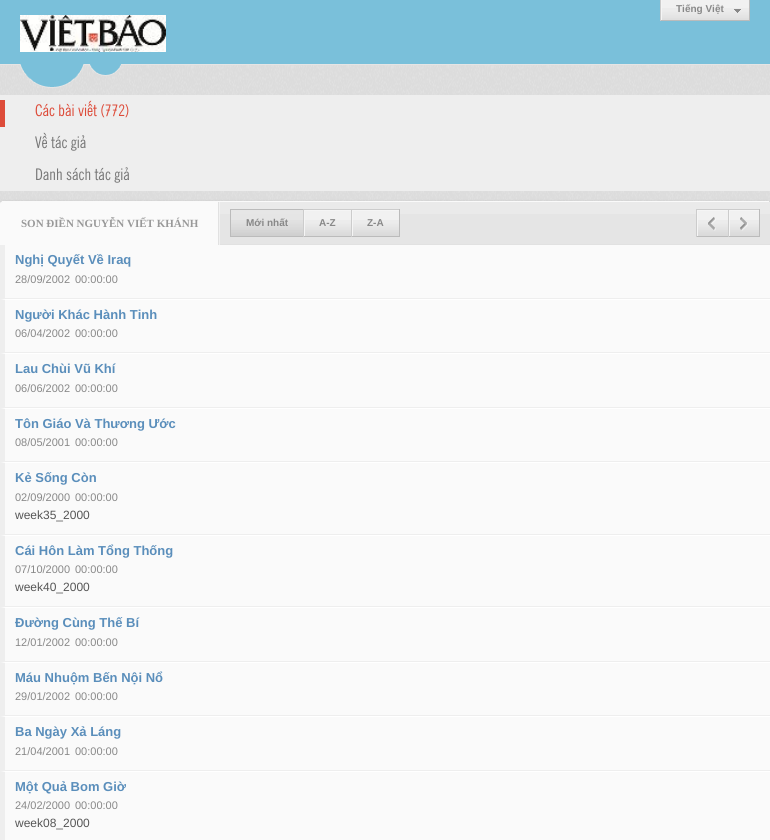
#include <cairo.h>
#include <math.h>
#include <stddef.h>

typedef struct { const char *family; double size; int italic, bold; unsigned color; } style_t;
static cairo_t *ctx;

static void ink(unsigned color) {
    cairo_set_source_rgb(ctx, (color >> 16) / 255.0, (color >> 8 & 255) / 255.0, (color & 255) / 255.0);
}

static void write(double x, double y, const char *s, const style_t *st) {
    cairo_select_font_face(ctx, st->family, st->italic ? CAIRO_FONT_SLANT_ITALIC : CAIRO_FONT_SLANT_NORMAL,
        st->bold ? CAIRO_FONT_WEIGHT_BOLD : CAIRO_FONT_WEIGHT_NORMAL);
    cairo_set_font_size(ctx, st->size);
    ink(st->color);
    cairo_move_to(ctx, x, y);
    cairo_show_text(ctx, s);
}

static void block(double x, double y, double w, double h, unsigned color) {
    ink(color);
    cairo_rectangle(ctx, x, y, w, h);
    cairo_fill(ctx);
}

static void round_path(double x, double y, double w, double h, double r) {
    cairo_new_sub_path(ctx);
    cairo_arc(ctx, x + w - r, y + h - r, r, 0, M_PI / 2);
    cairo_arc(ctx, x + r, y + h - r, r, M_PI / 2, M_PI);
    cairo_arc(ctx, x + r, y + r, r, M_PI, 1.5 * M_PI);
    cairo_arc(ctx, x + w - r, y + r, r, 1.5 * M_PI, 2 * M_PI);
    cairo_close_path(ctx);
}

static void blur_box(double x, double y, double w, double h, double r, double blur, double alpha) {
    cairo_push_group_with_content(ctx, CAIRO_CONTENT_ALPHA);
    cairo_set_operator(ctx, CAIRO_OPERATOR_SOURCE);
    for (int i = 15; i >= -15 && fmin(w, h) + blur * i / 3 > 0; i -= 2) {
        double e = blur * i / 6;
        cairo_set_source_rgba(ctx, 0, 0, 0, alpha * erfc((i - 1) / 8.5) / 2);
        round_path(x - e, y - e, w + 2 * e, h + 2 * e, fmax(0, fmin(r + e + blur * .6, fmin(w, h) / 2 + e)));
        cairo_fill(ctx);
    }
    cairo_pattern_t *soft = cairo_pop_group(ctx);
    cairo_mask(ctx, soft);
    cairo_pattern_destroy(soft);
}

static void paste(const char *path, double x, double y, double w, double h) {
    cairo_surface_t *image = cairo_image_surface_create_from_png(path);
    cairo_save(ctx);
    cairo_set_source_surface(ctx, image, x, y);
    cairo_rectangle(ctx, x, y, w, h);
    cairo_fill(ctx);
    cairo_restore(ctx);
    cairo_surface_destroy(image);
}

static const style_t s1 = {"Liberation Sans", 10, 0, 1, 0x888888};
static const style_t s2 = {"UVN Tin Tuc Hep", 16, 0, 0, 0xdd4b39};
static const style_t s3 = {"UVN Tin Tuc Hep", 16, 0, 0, 0x777777};
static const style_t s4 = {"Liberation Serif", 11, 0, 1, 0x999999};
static const style_t s5 = {"Liberation Sans", 13, 0, 1, 0x5a8ebb};
static const style_t s6 = {"Liberation Sans", 11, 0, 0, 0x888888};
static const style_t s7 = {"Liberation Sans", 12, 0, 0, 0x555555};

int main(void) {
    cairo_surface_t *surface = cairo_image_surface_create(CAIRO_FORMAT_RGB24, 770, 840);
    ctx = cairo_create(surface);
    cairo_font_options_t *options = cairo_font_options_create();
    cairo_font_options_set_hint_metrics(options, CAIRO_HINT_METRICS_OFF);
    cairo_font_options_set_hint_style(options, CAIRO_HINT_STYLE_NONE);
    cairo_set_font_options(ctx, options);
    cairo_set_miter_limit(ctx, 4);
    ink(0xffffff);
    cairo_paint(ctx);
    paste("pic1.png", 0, 65, 770, 137);
    block(0, 0, 770, 64, 0x7ac0da);
    block(0, 64, 770, 1, 0xe5e5e5);
    block(662, 0, 87, 20, 0xf1f1f1);
    paste("pic2.png", 662, 8, 87, 12);
    cairo_save(ctx);
    cairo_rectangle(ctx, 661, 0, 88, 20);
    cairo_clip(ctx);
    ink(0xf5f5f5);
    cairo_set_fill_rule(ctx, CAIRO_FILL_RULE_EVEN_ODD);
    cairo_new_path(ctx);
    cairo_move_to(ctx, 562, -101);
    cairo_line_to(ctx, 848, -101);
    cairo_line_to(ctx, 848, 119);
    cairo_line_to(ctx, 562, 119);
    cairo_close_path(ctx);
    cairo_move_to(ctx, 662, -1);
    cairo_line_to(ctx, 750, -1);
    cairo_line_to(ctx, 750, 21);
    cairo_line_to(ctx, 662, 21);
    cairo_close_path(ctx);
    cairo_fill(ctx);
    cairo_restore(ctx);
    block(749, 0, 1, 21, 0xbbbbbb);
    block(660, 20, 90, 1, 0xbbbbbb);
    block(660, 0, 1, 21, 0xcccccc);
    write(676, 12, "Tiếng Việt", &s1);
    paste("pic3.png", 734, 9, 7, 4);
    paste("pic4.png", 20, 15, 146, 37);
    paste("pic5.png", 20, 64, 101, 24);
    block(0, 95, 770, 96, 0xeeeeee);
    block(0, 100, 5, 27, 0xdd4b39);
    write(35, 116, "Các bài viết (772)", &s2);
    write(35, 148, "Về tác giả", &s3);
    write(35, 180, "Danh sách tác giả", &s3);
    ink(0x000000);
    blur_box(0, 202, 770, 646, 3, 1.5, 0.2);
    ink(0xf1f1f1);
    round_path(0, 201, 770, 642, 3);
    cairo_fill(ctx);
    block(2, 201, 767, 1, 0xfafafa);
    block(220, 214, 550, 30, 0xe5e5e5);
    block(0, 202, 770, 12, 0xeaeaea);
    block(220, 244, 550, 1, 0xe1e1e1);
    block(219, 202, 1, 12, 0xf2f2f2);
    ink(0xfafafa);
    cairo_new_path(ctx);
    cairo_move_to(ctx, 3, 202);
    cairo_line_to(ctx, 219, 202);
    cairo_line_to(ctx, 219, 245);
    cairo_line_to(ctx, 0, 245);
    cairo_line_to(ctx, 0, 205);
    cairo_curve_to(ctx, 0, 203.5, 1.5, 202, 3, 202);
    cairo_close_path(ctx);
    cairo_fill(ctx);
    block(218, 202, 1, 43, 0xe1e1e1);
    ink(0xfafafa);
    cairo_new_path(ctx);
    cairo_move_to(ctx, 0, 245);
    cairo_line_to(ctx, 1, 245);
    cairo_curve_to(ctx, 1, 230, -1, 202, 3, 202);
    cairo_curve_to(ctx, 1, 202, 0, 203, 0, 205);
    cairo_close_path(ctx);
    cairo_fill(ctx);
    write(21, 227, "SON ĐIỀN NGUYỄN VIẾT KHÁNH", &s4);
    block(231, 210, 72, 4, 0xe6e6e6);
    paste("pic6.png", 231, 220, 72, 16);
    block(230, 209, 73, 1, 0xbbbbbb);
    block(230, 236, 121, 1, 0xbbbbbb);
    block(230, 209, 1, 28, 0xbbbbbb);
    write(246, 226, "Mới nhất", &s1);
    block(305, 211, 46, 25, 0xf1f1f1);
    paste("pic7.png", 305, 220, 46, 16);
    cairo_save(ctx);
    cairo_rectangle(ctx, 304, 210, 47, 26);
    cairo_clip(ctx);
    ink(0xf5f5f5);
    cairo_set_fill_rule(ctx, CAIRO_FILL_RULE_EVEN_ODD);
    cairo_new_path(ctx);
    cairo_move_to(ctx, 205, 111);
    cairo_line_to(ctx, 450, 111);
    cairo_line_to(ctx, 450, 335);
    cairo_line_to(ctx, 205, 335);
    cairo_close_path(ctx);
    cairo_move_to(ctx, 305, 211);
    cairo_line_to(ctx, 352, 211);
    cairo_line_to(ctx, 352, 237);
    cairo_line_to(ctx, 305, 237);
    cairo_close_path(ctx);
    cairo_fill(ctx);
    cairo_restore(ctx);
    block(303, 209, 97, 1, 0xcccccc);
    block(303, 209, 1, 28, 0xcccccc);
    write(319, 226, "A-Z", &s1);
    block(353, 211, 46, 25, 0xf1f1f1);
    paste("pic7.png", 353, 220, 46, 16);
    cairo_save(ctx);
    cairo_rectangle(ctx, 352, 210, 47, 26);
    cairo_clip(ctx);
    ink(0xf5f5f5);
    cairo_set_fill_rule(ctx, CAIRO_FILL_RULE_EVEN_ODD);
    cairo_new_path(ctx);
    cairo_move_to(ctx, 253, 111);
    cairo_line_to(ctx, 498, 111);
    cairo_line_to(ctx, 498, 335);
    cairo_line_to(ctx, 253, 335);
    cairo_close_path(ctx);
    cairo_move_to(ctx, 353, 211);
    cairo_line_to(ctx, 400, 211);
    cairo_line_to(ctx, 400, 237);
    cairo_line_to(ctx, 353, 237);
    cairo_close_path(ctx);
    cairo_fill(ctx);
    cairo_restore(ctx);
    block(399, 209, 1, 28, 0xbbbbbb);
    block(351, 236, 49, 1, 0xbbbbbb);
    block(351, 209, 1, 28, 0xcccccc);
    write(367, 226, "Z-A", &s1);
    block(698, 211, 30, 25, 0xf1f1f1);
    paste("pic8.png", 698, 220, 30, 16);
    cairo_save(ctx);
    cairo_rectangle(ctx, 697, 210, 31, 26);
    cairo_clip(ctx);
    ink(0xf5f5f5);
    cairo_set_fill_rule(ctx, CAIRO_FILL_RULE_EVEN_ODD);
    cairo_new_path(ctx);
    cairo_move_to(ctx, 598, 111);
    cairo_line_to(ctx, 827, 111);
    cairo_line_to(ctx, 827, 335);
    cairo_line_to(ctx, 598, 335);
    cairo_close_path(ctx);
    cairo_move_to(ctx, 698, 211);
    cairo_line_to(ctx, 729, 211);
    cairo_line_to(ctx, 729, 237);
    cairo_line_to(ctx, 698, 237);
    cairo_close_path(ctx);
    cairo_fill(ctx);
    cairo_restore(ctx);
    block(696, 209, 64, 1, 0xcccccc);
    block(696, 236, 32, 1, 0xbbbbbb);
    block(696, 209, 1, 28, 0xcccccc);
    paste("pic9.png", 708, 217, 8, 14);
    block(730, 211, 29, 25, 0xf1f1f1);
    paste("pic10.png", 730, 220, 29, 16);
    cairo_save(ctx);
    cairo_rectangle(ctx, 729, 210, 30, 26);
    cairo_clip(ctx);
    ink(0xf5f5f5);
    cairo_set_fill_rule(ctx, CAIRO_FILL_RULE_EVEN_ODD);
    cairo_new_path(ctx);
    cairo_move_to(ctx, 630, 111);
    cairo_line_to(ctx, 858, 111);
    cairo_line_to(ctx, 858, 335);
    cairo_line_to(ctx, 630, 335);
    cairo_close_path(ctx);
    cairo_move_to(ctx, 730, 211);
    cairo_line_to(ctx, 760, 211);
    cairo_line_to(ctx, 760, 237);
    cairo_line_to(ctx, 730, 237);
    cairo_close_path(ctx);
    cairo_fill(ctx);
    cairo_restore(ctx);
    block(759, 209, 1, 28, 0xbbbbbb);
    block(728, 236, 32, 1, 0xbbbbbb);
    block(728, 209, 1, 28, 0xcccccc);
    paste("pic11.png", 740, 217, 8, 14);
    block(0, 245, 770, 595, 0xfafafa);
    block(0, 298, 770, 1, 0xeeeeee);
    block(0, 245, 5, 54, 0xeeeeee);
    write(15, 264, "Nghị Quyết Về Iraq", &s5);
    write(15, 283, "28/09/2002", &s6);
    write(75, 283, "00:00:00", &s6);
    ink(0xffffff);
    cairo_new_path(ctx);
    cairo_move_to(ctx, 0, 299);
    cairo_line_to(ctx, 770, 299);
    cairo_line_to(ctx, 770, 300);
    cairo_line_to(ctx, 5, 300);
    cairo_close_path(ctx);
    cairo_fill(ctx);
    block(0, 352, 770, 1, 0xeeeeee);
    cairo_new_path(ctx);
    cairo_move_to(ctx, 0, 353);
    cairo_line_to(ctx, 0, 299);
    cairo_line_to(ctx, 5, 300);
    cairo_line_to(ctx, 5, 352);
    cairo_close_path(ctx);
    cairo_fill(ctx);
    write(15, 319, "Người Khác Hành Tinh", &s5);
    write(15, 337, "06/04/2002", &s6);
    write(75, 337, "00:00:00", &s6);
    ink(0xffffff);
    cairo_new_path(ctx);
    cairo_move_to(ctx, 0, 353);
    cairo_line_to(ctx, 770, 353);
    cairo_line_to(ctx, 770, 354);
    cairo_line_to(ctx, 5, 354);
    cairo_close_path(ctx);
    cairo_fill(ctx);
    block(0, 407, 770, 1, 0xeeeeee);
    cairo_new_path(ctx);
    cairo_move_to(ctx, 0, 408);
    cairo_line_to(ctx, 0, 353);
    cairo_line_to(ctx, 5, 354);
    cairo_line_to(ctx, 5, 407);
    cairo_close_path(ctx);
    cairo_fill(ctx);
    write(15, 373, "Lau Chùi Vũ Khí", &s5);
    write(15, 392, "06/06/2002", &s6);
    write(75, 392, "00:00:00", &s6);
    ink(0xffffff);
    cairo_new_path(ctx);
    cairo_move_to(ctx, 0, 408);
    cairo_line_to(ctx, 770, 408);
    cairo_line_to(ctx, 770, 409);
    cairo_line_to(ctx, 5, 409);
    cairo_close_path(ctx);
    cairo_fill(ctx);
    block(0, 461, 770, 1, 0xeeeeee);
    cairo_new_path(ctx);
    cairo_move_to(ctx, 0, 462);
    cairo_line_to(ctx, 0, 408);
    cairo_line_to(ctx, 5, 409);
    cairo_line_to(ctx, 5, 461);
    cairo_close_path(ctx);
    cairo_fill(ctx);
    write(15, 428, "Tôn Giáo Và Thương Ước", &s5);
    write(15, 446, "08/05/2001", &s6);
    write(75, 446, "00:00:00", &s6);
    ink(0xffffff);
    cairo_new_path(ctx);
    cairo_move_to(ctx, 0, 462);
    cairo_line_to(ctx, 770, 462);
    cairo_line_to(ctx, 770, 463);
    cairo_line_to(ctx, 5, 463);
    cairo_close_path(ctx);
    cairo_fill(ctx);
    block(0, 534, 770, 1, 0xeeeeee);
    cairo_new_path(ctx);
    cairo_move_to(ctx, 0, 535);
    cairo_line_to(ctx, 0, 462);
    cairo_line_to(ctx, 5, 463);
    cairo_line_to(ctx, 5, 534);
    cairo_close_path(ctx);
    cairo_fill(ctx);
    write(15, 482, "Kẻ Sống Còn", &s5);
    write(15, 501, "02/09/2000", &s6);
    write(75, 501, "00:00:00", &s6);
    write(15, 519, "week35_2000", &s7);
    ink(0xffffff);
    cairo_new_path(ctx);
    cairo_move_to(ctx, 0, 535);
    cairo_line_to(ctx, 770, 535);
    cairo_line_to(ctx, 770, 536);
    cairo_line_to(ctx, 5, 536);
    cairo_close_path(ctx);
    cairo_fill(ctx);
    block(0, 606, 770, 1, 0xeeeeee);
    cairo_new_path(ctx);
    cairo_move_to(ctx, 0, 607);
    cairo_line_to(ctx, 0, 535);
    cairo_line_to(ctx, 5, 536);
    cairo_line_to(ctx, 5, 606);
    cairo_close_path(ctx);
    cairo_fill(ctx);
    write(15, 555, "Cái Hôn Làm Tổng Thống", &s5);
    write(15, 573, "07/10/2000", &s6);
    write(75, 573, "00:00:00", &s6);
    write(15, 591, "week40_2000", &s7);
    ink(0xffffff);
    cairo_new_path(ctx);
    cairo_move_to(ctx, 0, 607);
    cairo_line_to(ctx, 770, 607);
    cairo_line_to(ctx, 770, 608);
    cairo_line_to(ctx, 5, 608);
    cairo_close_path(ctx);
    cairo_fill(ctx);
    block(0, 661, 770, 1, 0xeeeeee);
    cairo_new_path(ctx);
    cairo_move_to(ctx, 0, 662);
    cairo_line_to(ctx, 0, 607);
    cairo_line_to(ctx, 5, 608);
    cairo_line_to(ctx, 5, 661);
    cairo_close_path(ctx);
    cairo_fill(ctx);
    write(15, 627, "Đường Cùng Thế Bí", &s5);
    write(15, 646, "12/01/2002", &s6);
    write(75, 646, "00:00:00", &s6);
    ink(0xffffff);
    cairo_new_path(ctx);
    cairo_move_to(ctx, 0, 662);
    cairo_line_to(ctx, 770, 662);
    cairo_line_to(ctx, 770, 663);
    cairo_line_to(ctx, 5, 663);
    cairo_close_path(ctx);
    cairo_fill(ctx);
    block(0, 715, 770, 1, 0xeeeeee);
    cairo_new_path(ctx);
    cairo_move_to(ctx, 0, 716);
    cairo_line_to(ctx, 0, 662);
    cairo_line_to(ctx, 5, 663);
    cairo_line_to(ctx, 5, 715);
    cairo_close_path(ctx);
    cairo_fill(ctx);
    write(15, 682, "Máu Nhuộm Bến Nội Nổ", &s5);
    write(15, 700, "29/01/2002", &s6);
    write(75, 700, "00:00:00", &s6);
    ink(0xffffff);
    cairo_new_path(ctx);
    cairo_move_to(ctx, 0, 716);
    cairo_line_to(ctx, 770, 716);
    cairo_line_to(ctx, 770, 717);
    cairo_line_to(ctx, 5, 717);
    cairo_close_path(ctx);
    cairo_fill(ctx);
    block(0, 770, 770, 1, 0xeeeeee);
    cairo_new_path(ctx);
    cairo_move_to(ctx, 0, 771);
    cairo_line_to(ctx, 0, 716);
    cairo_line_to(ctx, 5, 717);
    cairo_line_to(ctx, 5, 770);
    cairo_close_path(ctx);
    cairo_fill(ctx);
    write(15, 736, "Ba Ngày Xả Láng", &s5);
    write(15, 755, "21/04/2001", &s6);
    write(75, 755, "00:00:00", &s6);
    ink(0xffffff);
    cairo_new_path(ctx);
    cairo_move_to(ctx, 0, 771);
    cairo_line_to(ctx, 770, 771);
    cairo_line_to(ctx, 770, 772);
    cairo_line_to(ctx, 5, 772);
    cairo_close_path(ctx);
    cairo_fill(ctx);
    ink(0xeeeeee);
    cairo_new_path(ctx);
    cairo_move_to(ctx, 0, 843);
    cairo_line_to(ctx, 0, 771);
    cairo_line_to(ctx, 5, 772);
    cairo_line_to(ctx, 5, 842);
    cairo_close_path(ctx);
    cairo_fill(ctx);
    write(15, 791, "Một Quả Bom Giờ", &s5);
    write(15, 809, "24/02/2000", &s6);
    write(75, 809, "00:00:00", &s6);
    write(15, 827, "week08_2000", &s7);
    cairo_surface_write_to_png(surface, "screenshot.png");
    cairo_font_options_destroy(options);
    cairo_destroy(ctx);
    cairo_surface_destroy(surface);
    return 0;
}
